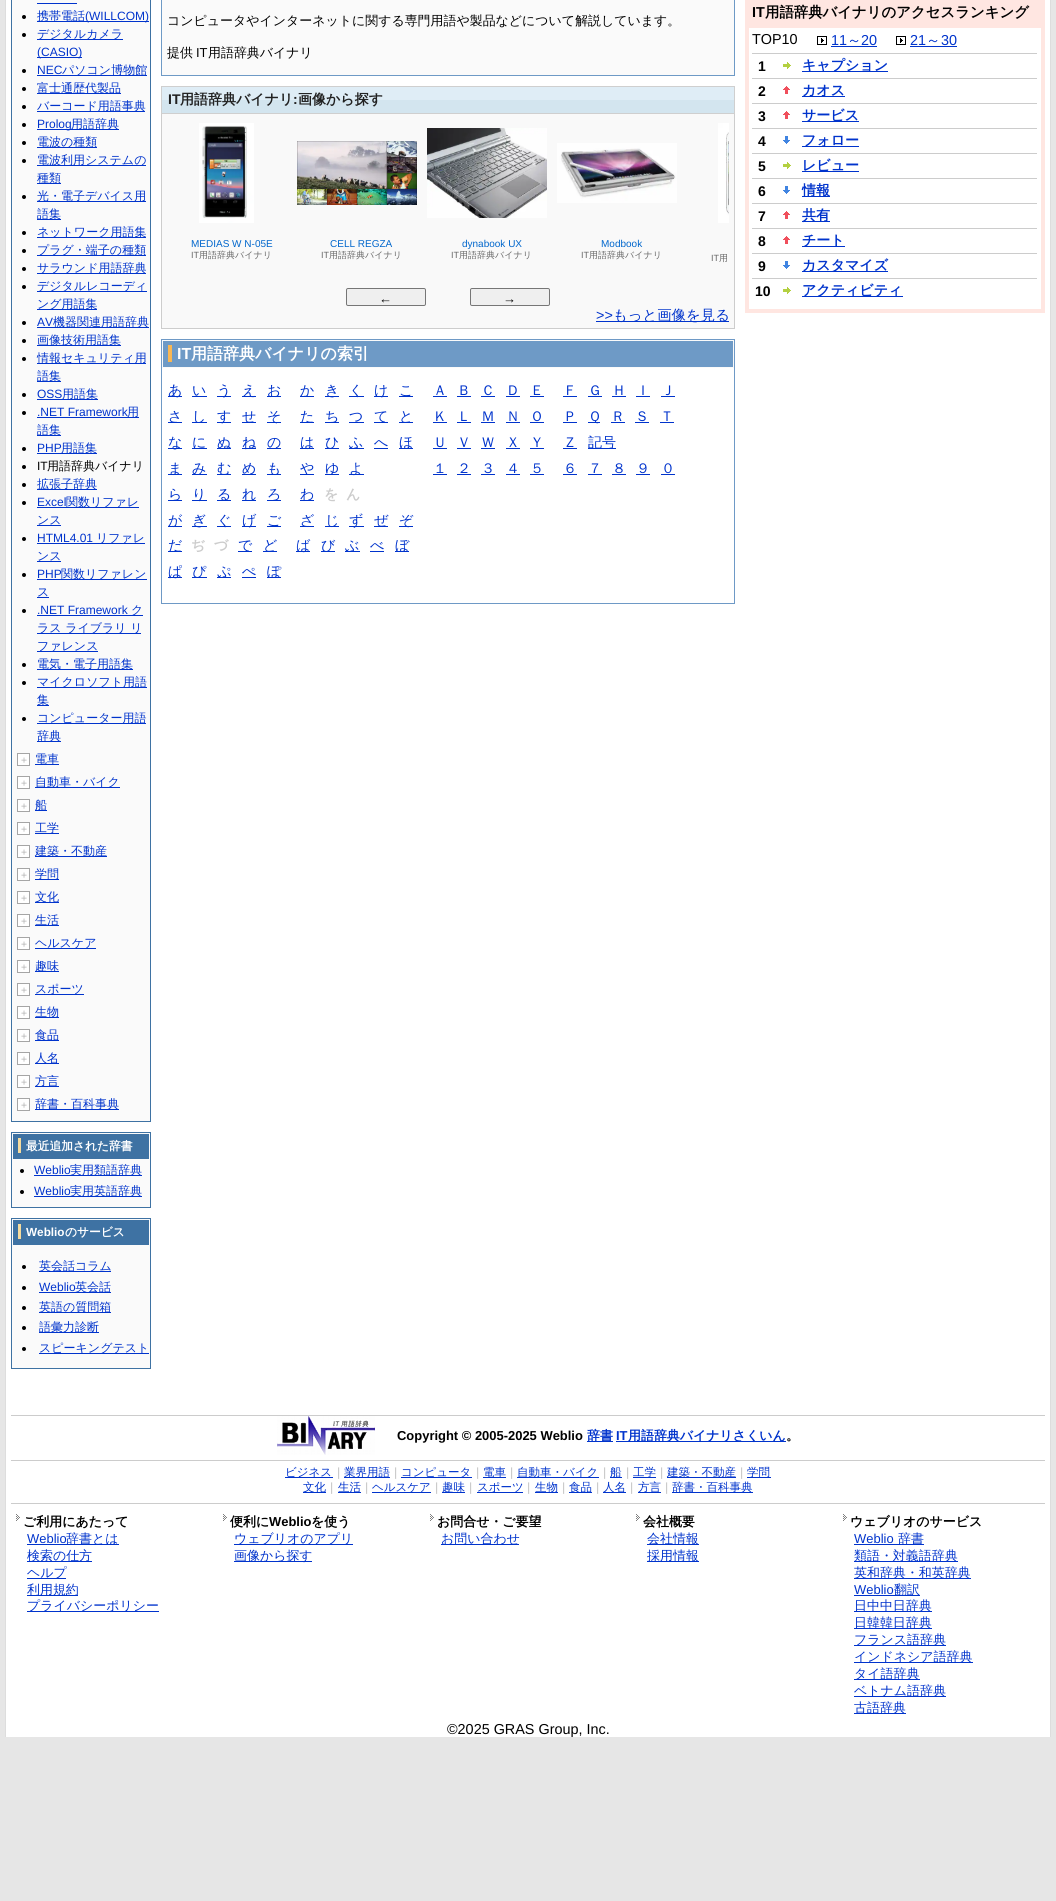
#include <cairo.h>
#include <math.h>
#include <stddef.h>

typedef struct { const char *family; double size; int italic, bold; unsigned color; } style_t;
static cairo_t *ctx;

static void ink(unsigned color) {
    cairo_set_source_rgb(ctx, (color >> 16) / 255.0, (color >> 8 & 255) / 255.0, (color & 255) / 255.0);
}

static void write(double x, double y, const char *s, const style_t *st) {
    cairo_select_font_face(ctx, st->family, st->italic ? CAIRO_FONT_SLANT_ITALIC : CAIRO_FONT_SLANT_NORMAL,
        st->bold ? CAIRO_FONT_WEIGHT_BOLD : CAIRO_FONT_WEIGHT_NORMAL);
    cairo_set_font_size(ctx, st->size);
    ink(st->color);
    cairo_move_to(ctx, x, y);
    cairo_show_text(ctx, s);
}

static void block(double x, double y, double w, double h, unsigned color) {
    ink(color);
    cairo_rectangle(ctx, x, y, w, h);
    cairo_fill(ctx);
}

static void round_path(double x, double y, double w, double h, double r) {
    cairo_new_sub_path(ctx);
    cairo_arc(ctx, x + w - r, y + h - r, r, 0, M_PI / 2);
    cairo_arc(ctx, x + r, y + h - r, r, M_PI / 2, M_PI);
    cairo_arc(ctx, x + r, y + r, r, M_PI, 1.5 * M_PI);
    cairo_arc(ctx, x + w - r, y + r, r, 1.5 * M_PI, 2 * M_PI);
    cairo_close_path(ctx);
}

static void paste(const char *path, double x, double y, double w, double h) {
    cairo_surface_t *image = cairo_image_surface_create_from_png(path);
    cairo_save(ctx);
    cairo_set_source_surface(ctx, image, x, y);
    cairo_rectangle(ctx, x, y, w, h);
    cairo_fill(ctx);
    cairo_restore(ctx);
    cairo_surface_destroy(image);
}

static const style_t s1 = {"WenQuanYi Zen Hei Medium", 12, 0, 0, 0x0033cc};
static const style_t s2 = {"Liberation Sans", 12, 0, 0, 0x0033cc};
static const style_t s3 = {"Liberation Sans", 12, 0, 0, 0x000000};
static const style_t s4 = {"WenQuanYi Zen Hei Medium", 12, 0, 0, 0x000000};
static const style_t s5 = {"WenQuanYi Zen Hei Medium", 10, 0, 0, 0xaaaaaa};
static const style_t s6 = {"WenQuanYi Zen Hei", 11.75, 0, 1, 0xffffff};
static const style_t s7 = {"Liberation Sans", 11.75, 0, 1, 0xffffff};
static const style_t s8 = {"WenQuanYi Zen Hei Medium", 12.95, 0, 0, 0x000000};
static const style_t s9 = {"Liberation Sans", 12.95, 0, 0, 0x000000};
static const style_t s10 = {"Liberation Sans", 14, 0, 1, 0x212121};
static const style_t s11 = {"WenQuanYi Zen Hei", 14, 0, 1, 0x212121};
static const style_t s12 = {"Liberation Sans", 10, 0, 0, 0x0066cc};
static const style_t s13 = {"Liberation Sans", 9, 0, 0, 0x666666};
static const style_t s14 = {"WenQuanYi Zen Hei Medium", 9, 0, 0, 0x666666};
static const style_t s15 = {"Liberation Sans", 13, 0, 0, 0x000000};
static const style_t s16 = {"Liberation Sans", 14.4, 0, 0, 0x0033cc};
static const style_t s17 = {"WenQuanYi Zen Hei Medium", 14.4, 0, 0, 0x0033cc};
static const style_t s18 = {"Liberation Sans", 16, 0, 1, 0xffffff};
static const style_t s19 = {"WenQuanYi Zen Hei", 16, 0, 1, 0xffffff};
static const style_t s20 = {"WenQuanYi Zen Hei Medium", 14, 0, 0, 0x0033cc};
static const style_t s21 = {"WenQuanYi Zen Hei", 14, 0, 1, 0xcccccc};
static const style_t s22 = {"Liberation Sans", 14.4, 0, 1, 0x000000};
static const style_t s23 = {"WenQuanYi Zen Hei", 14.4, 0, 1, 0x000000};
static const style_t s24 = {"Liberation Sans", 14.4, 0, 0, 0x000000};
static const style_t s25 = {"Liberation Sans", 14, 0, 1, 0x000000};
static const style_t s26 = {"WenQuanYi Zen Hei", 14, 0, 1, 0x0033cc};
static const style_t s27 = {"Liberation Sans", 12.95, 0, 1, 0x000000};
static const style_t s28 = {"WenQuanYi Zen Hei", 12.95, 0, 1, 0x0033cc};
static const style_t s29 = {"Liberation Sans", 12.95, 0, 1, 0x0033cc};
static const style_t s30 = {"WenQuanYi Zen Hei", 12.95, 0, 1, 0x000000};
static const style_t s31 = {"WenQuanYi Zen Hei Medium", 11.5, 0, 0, 0x0033cc};
static const style_t s32 = {"WenQuanYi Zen Hei Medium", 11.5, 0, 0, 0xaaaaaa};
static const style_t s33 = {"Liberation Sans", 12.95, 0, 0, 0x0033cc};
static const style_t s34 = {"WenQuanYi Zen Hei Medium", 12.95, 0, 0, 0x0033cc};

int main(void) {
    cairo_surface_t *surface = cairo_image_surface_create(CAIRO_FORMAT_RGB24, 1056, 1901);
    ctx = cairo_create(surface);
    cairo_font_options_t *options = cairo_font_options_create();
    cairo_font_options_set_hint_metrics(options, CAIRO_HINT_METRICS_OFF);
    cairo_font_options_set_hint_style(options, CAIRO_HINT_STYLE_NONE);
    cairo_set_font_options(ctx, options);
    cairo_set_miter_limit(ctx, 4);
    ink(0xe6e6e6);
    cairo_paint(ctx);
    block(6, 0, 1044, 1737, 0xffffff);
    block(1050, 0, 1, 1737, 0xdddddd);
    block(5, 0, 1, 1737, 0xdddddd);
    ink(0xfafafa);
    cairo_rectangle(ctx, 11.5, -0.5, 139, 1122);
    cairo_fill_preserve(ctx);
    ink(0x3e72a3);
    cairo_set_line_width(ctx, 1);
    cairo_stroke(ctx);
    block(37, 3, 40, 1, 0x0033cc);
    ink(0x000000);
    cairo_arc(ctx, 24, 17, 2, 0, 2 * M_PI);
    cairo_fill(ctx);
    block(37, 21, 112, 1, 0x0033cc);
    write(37, 20, "携帯電話", &s1);
    write(85, 20, "(WILLCOM)", &s2);
    ink(0x000000);
    cairo_new_path(ctx);
    cairo_arc(ctx, 24, 35, 2, 0, 2 * M_PI);
    cairo_fill(ctx);
    block(37, 39, 86, 1, 0x0033cc);
    write(37, 38, "デジタルカメラ", &s1);
    block(37, 57, 45, 1, 0x0033cc);
    write(37, 56, "(CASIO)", &s2);
    ink(0x000000);
    cairo_new_path(ctx);
    cairo_arc(ctx, 24, 71, 2, 0, 2 * M_PI);
    cairo_fill(ctx);
    write(37, 74, "NEC", &s2);
    block(37, 75, 110, 1, 0x0033cc);
    write(62, 74, "パソコン博物館", &s1);
    ink(0x000000);
    cairo_new_path(ctx);
    cairo_arc(ctx, 24, 89, 2, 0, 2 * M_PI);
    cairo_fill(ctx);
    block(37, 93, 84, 1, 0x0033cc);
    write(37, 92, "富士通歴代製品", &s1);
    ink(0x000000);
    cairo_new_path(ctx);
    cairo_arc(ctx, 24, 107, 2, 0, 2 * M_PI);
    cairo_fill(ctx);
    block(37, 111, 108, 1, 0x0033cc);
    write(37, 110, "バーコード用語事典", &s1);
    ink(0x000000);
    cairo_new_path(ctx);
    cairo_arc(ctx, 24, 125, 2, 0, 2 * M_PI);
    cairo_fill(ctx);
    block(37, 129, 82, 1, 0x0033cc);
    write(37, 128, "Prolog", &s2);
    write(71, 128, "用語辞典", &s1);
    ink(0x000000);
    cairo_new_path(ctx);
    cairo_arc(ctx, 24, 143, 2, 0, 2 * M_PI);
    cairo_fill(ctx);
    block(37, 147, 60, 1, 0x0033cc);
    write(37, 146, "電波の種類", &s1);
    ink(0x000000);
    cairo_new_path(ctx);
    cairo_arc(ctx, 24, 161, 2, 0, 2 * M_PI);
    cairo_fill(ctx);
    block(37, 165, 109, 1, 0x0033cc);
    write(37, 164, "電波利用システムの", &s1);
    block(37, 183, 24, 1, 0x0033cc);
    write(37, 182, "種類", &s1);
    ink(0x000000);
    cairo_new_path(ctx);
    cairo_arc(ctx, 24, 197, 2, 0, 2 * M_PI);
    cairo_fill(ctx);
    block(37, 201, 109, 1, 0x0033cc);
    write(37, 200, "光・電子デバイス用", &s1);
    block(37, 219, 24, 1, 0x0033cc);
    write(37, 218, "語集", &s1);
    ink(0x000000);
    cairo_new_path(ctx);
    cairo_arc(ctx, 24, 233, 2, 0, 2 * M_PI);
    cairo_fill(ctx);
    block(37, 237, 109, 1, 0x0033cc);
    write(37, 236, "ネットワーク用語集", &s1);
    ink(0x000000);
    cairo_new_path(ctx);
    cairo_arc(ctx, 24, 251, 2, 0, 2 * M_PI);
    cairo_fill(ctx);
    block(37, 255, 109, 1, 0x0033cc);
    write(37, 254, "プラグ・端子の種類", &s1);
    ink(0x000000);
    cairo_new_path(ctx);
    cairo_arc(ctx, 24, 269, 2, 0, 2 * M_PI);
    cairo_fill(ctx);
    block(37, 273, 109, 1, 0x0033cc);
    write(37, 272, "サラウンド用語辞典", &s1);
    ink(0x000000);
    cairo_new_path(ctx);
    cairo_arc(ctx, 24, 287, 2, 0, 2 * M_PI);
    cairo_fill(ctx);
    block(37, 291, 110, 1, 0x0033cc);
    write(37, 290, "デジタルレコーディ", &s1);
    block(37, 309, 60, 1, 0x0033cc);
    write(37, 308, "ング用語集", &s1);
    ink(0x000000);
    cairo_new_path(ctx);
    cairo_arc(ctx, 24, 323, 2, 0, 2 * M_PI);
    cairo_fill(ctx);
    write(37, 326, "AV", &s2);
    block(37, 327, 112, 1, 0x0033cc);
    write(53, 326, "機器関連用語辞典", &s1);
    ink(0x000000);
    cairo_new_path(ctx);
    cairo_arc(ctx, 24, 341, 2, 0, 2 * M_PI);
    cairo_fill(ctx);
    block(37, 345, 84, 1, 0x0033cc);
    write(37, 344, "画像技術用語集", &s1);
    ink(0x000000);
    cairo_new_path(ctx);
    cairo_arc(ctx, 24, 359, 2, 0, 2 * M_PI);
    cairo_fill(ctx);
    block(37, 363, 109, 1, 0x0033cc);
    write(37, 362, "情報セキュリティ用", &s1);
    block(37, 381, 24, 1, 0x0033cc);
    write(37, 380, "語集", &s1);
    ink(0x000000);
    cairo_new_path(ctx);
    cairo_arc(ctx, 24, 395, 2, 0, 2 * M_PI);
    cairo_fill(ctx);
    write(37, 398, "OSS", &s2);
    block(37, 399, 61, 1, 0x0033cc);
    write(62, 398, "用語集", &s1);
    ink(0x000000);
    cairo_new_path(ctx);
    cairo_arc(ctx, 24, 413, 2, 0, 2 * M_PI);
    cairo_fill(ctx);
    write(37, 416, ".NET Framework", &s2);
    block(37, 417, 102, 1, 0x0033cc);
    write(127, 416, "用", &s1);
    block(37, 435, 24, 1, 0x0033cc);
    write(37, 434, "語集", &s1);
    ink(0x000000);
    cairo_new_path(ctx);
    cairo_arc(ctx, 24, 449, 2, 0, 2 * M_PI);
    cairo_fill(ctx);
    write(37, 452, "PHP", &s2);
    block(37, 453, 60, 1, 0x0033cc);
    write(61, 452, "用語集", &s1);
    ink(0x000000);
    cairo_new_path(ctx);
    cairo_arc(ctx, 24, 467, 2, 0, 2 * M_PI);
    cairo_fill(ctx);
    write(37, 470, "IT", &s3);
    write(47, 470, "用語辞典バイナリ", &s4);
    cairo_new_path(ctx);
    cairo_arc(ctx, 24, 485, 2, 0, 2 * M_PI);
    cairo_fill(ctx);
    block(37, 489, 60, 1, 0x0033cc);
    write(37, 488, "拡張子辞典", &s1);
    ink(0x000000);
    cairo_new_path(ctx);
    cairo_arc(ctx, 24, 503, 2, 0, 2 * M_PI);
    cairo_fill(ctx);
    write(37, 506, "Excel", &s2);
    block(37, 507, 102, 1, 0x0033cc);
    write(66, 506, "関数リファレ", &s1);
    write(37, 524, "ンス", &s1);
    block(37, 525, 24, 1, 0x0033cc);
    ink(0x000000);
    cairo_new_path(ctx);
    cairo_arc(ctx, 24, 539, 2, 0, 2 * M_PI);
    cairo_fill(ctx);
    write(37, 542, "HTML4.01", &s2);
    block(37, 543, 108, 1, 0x0033cc);
    write(96, 542, "リファレ", &s1);
    write(37, 560, "ンス", &s1);
    block(37, 561, 24, 1, 0x0033cc);
    ink(0x000000);
    cairo_new_path(ctx);
    cairo_arc(ctx, 24, 575, 2, 0, 2 * M_PI);
    cairo_fill(ctx);
    write(37, 578, "PHP", &s2);
    block(37, 579, 110, 1, 0x0033cc);
    write(61, 578, "関数リファレン", &s1);
    write(37, 596, "ス", &s1);
    block(37, 597, 12, 1, 0x0033cc);
    ink(0x000000);
    cairo_new_path(ctx);
    cairo_arc(ctx, 24, 611, 2, 0, 2 * M_PI);
    cairo_fill(ctx);
    write(37, 614, ".NET Framework", &s2);
    block(37, 615, 106, 1, 0x0033cc);
    write(131, 614, "ク", &s1);
    block(37, 633, 104, 1, 0x0033cc);
    write(37, 632, "ラス ライブラリ リ", &s1);
    block(37, 651, 61, 1, 0x0033cc);
    write(37, 650, "ファレンス", &s1);
    ink(0x000000);
    cairo_new_path(ctx);
    cairo_arc(ctx, 24, 665, 2, 0, 2 * M_PI);
    cairo_fill(ctx);
    block(37, 669, 96, 1, 0x0033cc);
    write(37, 668, "電気・電子用語集", &s1);
    ink(0x000000);
    cairo_new_path(ctx);
    cairo_arc(ctx, 24, 683, 2, 0, 2 * M_PI);
    cairo_fill(ctx);
    block(37, 687, 110, 1, 0x0033cc);
    write(37, 686, "マイクロソフト用語", &s1);
    block(37, 705, 12, 1, 0x0033cc);
    write(37, 704, "集", &s1);
    ink(0x000000);
    cairo_new_path(ctx);
    cairo_arc(ctx, 24, 719, 2, 0, 2 * M_PI);
    cairo_fill(ctx);
    block(37, 723, 109, 1, 0x0033cc);
    write(37, 722, "コンピューター用語", &s1);
    block(37, 741, 24, 1, 0x0033cc);
    write(37, 740, "辞典", &s1);
    ink(0xffffff);
    cairo_rectangle(ctx, 17.5, 753.5, 12, 12);
    cairo_fill_preserve(ctx);
    ink(0xa5a5a5);
    cairo_stroke(ctx);
    write(19, 763, "＋", &s5);
    block(35, 764, 24, 1, 0x0033cc);
    write(35, 763, "電車", &s1);
    ink(0xffffff);
    cairo_rectangle(ctx, 17.5, 776.5, 12, 12);
    cairo_fill_preserve(ctx);
    ink(0xa5a5a5);
    cairo_stroke(ctx);
    write(19, 786, "＋", &s5);
    block(35, 787, 85, 1, 0x0033cc);
    write(35, 786, "自動車・バイク", &s1);
    ink(0xffffff);
    cairo_rectangle(ctx, 17.5, 799.5, 12, 12);
    cairo_fill_preserve(ctx);
    ink(0xa5a5a5);
    cairo_stroke(ctx);
    write(19, 809, "＋", &s5);
    block(35, 810, 12, 1, 0x0033cc);
    write(35, 809, "船", &s1);
    ink(0xffffff);
    cairo_rectangle(ctx, 17.5, 822.5, 12, 12);
    cairo_fill_preserve(ctx);
    ink(0xa5a5a5);
    cairo_stroke(ctx);
    write(19, 832, "＋", &s5);
    block(35, 833, 24, 1, 0x0033cc);
    write(35, 832, "工学", &s1);
    ink(0xffffff);
    cairo_rectangle(ctx, 17.5, 845.5, 12, 12);
    cairo_fill_preserve(ctx);
    ink(0xa5a5a5);
    cairo_stroke(ctx);
    write(19, 855, "＋", &s5);
    block(35, 856, 72, 1, 0x0033cc);
    write(35, 855, "建築・不動産", &s1);
    ink(0xffffff);
    cairo_rectangle(ctx, 17.5, 868.5, 12, 12);
    cairo_fill_preserve(ctx);
    ink(0xa5a5a5);
    cairo_stroke(ctx);
    write(19, 878, "＋", &s5);
    block(35, 879, 24, 1, 0x0033cc);
    write(35, 878, "学問", &s1);
    ink(0xffffff);
    cairo_rectangle(ctx, 17.5, 891.5, 12, 12);
    cairo_fill_preserve(ctx);
    ink(0xa5a5a5);
    cairo_stroke(ctx);
    write(19, 901, "＋", &s5);
    block(35, 902, 24, 1, 0x0033cc);
    write(35, 901, "文化", &s1);
    ink(0xffffff);
    cairo_rectangle(ctx, 17.5, 914.5, 12, 12);
    cairo_fill_preserve(ctx);
    ink(0xa5a5a5);
    cairo_stroke(ctx);
    write(19, 924, "＋", &s5);
    block(35, 925, 24, 1, 0x0033cc);
    write(35, 924, "生活", &s1);
    ink(0xffffff);
    cairo_rectangle(ctx, 17.5, 937.5, 12, 12);
    cairo_fill_preserve(ctx);
    ink(0xa5a5a5);
    cairo_stroke(ctx);
    write(19, 947, "＋", &s5);
    block(35, 948, 61, 1, 0x0033cc);
    write(35, 947, "ヘルスケア", &s1);
    ink(0xffffff);
    cairo_rectangle(ctx, 17.5, 960.5, 12, 12);
    cairo_fill_preserve(ctx);
    ink(0xa5a5a5);
    cairo_stroke(ctx);
    write(19, 970, "＋", &s5);
    block(35, 971, 24, 1, 0x0033cc);
    write(35, 970, "趣味", &s1);
    ink(0xffffff);
    cairo_rectangle(ctx, 17.5, 983.5, 12, 12);
    cairo_fill_preserve(ctx);
    ink(0xa5a5a5);
    cairo_stroke(ctx);
    write(19, 993, "＋", &s5);
    block(35, 994, 49, 1, 0x0033cc);
    write(35, 993, "スポーツ", &s1);
    ink(0xffffff);
    cairo_rectangle(ctx, 17.5, 1006.5, 12, 12);
    cairo_fill_preserve(ctx);
    ink(0xa5a5a5);
    cairo_stroke(ctx);
    write(19, 1016, "＋", &s5);
    block(35, 1017, 24, 1, 0x0033cc);
    write(35, 1016, "生物", &s1);
    ink(0xffffff);
    cairo_rectangle(ctx, 17.5, 1029.5, 12, 12);
    cairo_fill_preserve(ctx);
    ink(0xa5a5a5);
    cairo_stroke(ctx);
    write(19, 1039, "＋", &s5);
    block(35, 1040, 24, 1, 0x0033cc);
    write(35, 1039, "食品", &s1);
    ink(0xffffff);
    cairo_rectangle(ctx, 17.5, 1052.5, 12, 12);
    cairo_fill_preserve(ctx);
    ink(0xa5a5a5);
    cairo_stroke(ctx);
    write(19, 1062, "＋", &s5);
    block(35, 1063, 24, 1, 0x0033cc);
    write(35, 1062, "人名", &s1);
    ink(0xffffff);
    cairo_rectangle(ctx, 17.5, 1075.5, 12, 12);
    cairo_fill_preserve(ctx);
    ink(0xa5a5a5);
    cairo_stroke(ctx);
    write(19, 1085, "＋", &s5);
    block(35, 1086, 24, 1, 0x0033cc);
    write(35, 1085, "方言", &s1);
    ink(0xffffff);
    cairo_rectangle(ctx, 17.5, 1098.5, 12, 12);
    cairo_fill_preserve(ctx);
    ink(0xa5a5a5);
    cairo_stroke(ctx);
    write(19, 1108, "＋", &s5);
    block(35, 1109, 84, 1, 0x0033cc);
    write(35, 1108, "辞書・百科事典", &s1);
    block(12, 1160, 138, 47, 0xfafafa);
    cairo_rectangle(ctx, 11.5, 1132.5, 139, 75);
    ink(0x3e72a3);
    cairo_stroke(ctx);
    cairo_rectangle(ctx, 12.5, 1133.5, 137, 26);
    cairo_fill_preserve(ctx);
    ink(0xfafafa);
    cairo_stroke(ctx);
    block(18, 1138, 3, 15, 0xf5db9e);
    write(26, 1150, "最近追加された辞書", &s6);
    ink(0x000000);
    cairo_new_path(ctx);
    cairo_arc(ctx, 22, 1171, 2, 0, 2 * M_PI);
    cairo_fill(ctx);
    write(34, 1174, "Weblio", &s2);
    block(34, 1175, 108, 1, 0x0033cc);
    write(70, 1174, "実用類語辞典", &s1);
    ink(0x000000);
    cairo_new_path(ctx);
    cairo_arc(ctx, 22, 1192, 2, 0, 2 * M_PI);
    cairo_fill(ctx);
    write(34, 1195, "Weblio", &s2);
    block(34, 1196, 108, 1, 0x0033cc);
    write(70, 1195, "実用英語辞典", &s1);
    block(12, 1246, 138, 122, 0xfafafa);
    cairo_rectangle(ctx, 11.5, 1218.5, 139, 150);
    ink(0x3e72a3);
    cairo_stroke(ctx);
    cairo_rectangle(ctx, 12.5, 1219.5, 137, 26);
    cairo_fill_preserve(ctx);
    ink(0xfafafa);
    cairo_stroke(ctx);
    block(18, 1224, 3, 15, 0xf5db9e);
    write(26, 1236, "Weblio", &s7);
    write(65, 1236, "のサービス", &s6);
    ink(0x000000);
    cairo_new_path(ctx);
    cairo_arc(ctx, 24, 1267, 2, 0, 2 * M_PI);
    cairo_fill(ctx);
    block(39, 1271, 72, 1, 0x0033cc);
    write(39, 1270, "英会話コラム", &s1);
    ink(0x000000);
    cairo_new_path(ctx);
    cairo_arc(ctx, 24, 1288, 2, 0, 2 * M_PI);
    cairo_fill(ctx);
    write(39, 1291, "Weblio", &s2);
    block(39, 1292, 72, 1, 0x0033cc);
    write(75, 1291, "英会話", &s1);
    ink(0x000000);
    cairo_new_path(ctx);
    cairo_arc(ctx, 24, 1308, 2, 0, 2 * M_PI);
    cairo_fill(ctx);
    block(39, 1312, 72, 1, 0x0033cc);
    write(39, 1311, "英語の質問箱", &s1);
    ink(0x000000);
    cairo_new_path(ctx);
    cairo_arc(ctx, 24, 1328, 2, 0, 2 * M_PI);
    cairo_fill(ctx);
    block(39, 1332, 60, 1, 0x0033cc);
    write(39, 1331, "語彙力診断", &s1);
    ink(0x000000);
    cairo_new_path(ctx);
    cairo_arc(ctx, 24, 1349, 2, 0, 2 * M_PI);
    cairo_fill(ctx);
    block(39, 1353, 110, 1, 0x0033cc);
    write(39, 1352, "スピーキングテスト", &s1);
    ink(0xfafafa);
    cairo_rectangle(ctx, 161.5, -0.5, 573, 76);
    cairo_fill_preserve(ctx);
    ink(0x6e9ac6);
    cairo_stroke(ctx);
    write(167, 25, "コンピュータやインターネットに関する専門用語や製品などについて解説しています。", &s8);
    write(167, 57, "提供", &s8);
    write(196, 57, "IT", &s9);
    write(208, 57, "用語辞典バイナリ", &s8);
    block(734, 113, 1, 216, 0xcdcdcd);
    block(161, 328, 574, 1, 0xcdcdcd);
    block(161, 113, 1, 216, 0xcdcdcd);
    cairo_rectangle(ctx, 161.5, 86.5, 573, 27);
    ink(0xcfcfcf);
    cairo_stroke(ctx);
    block(162, 87, 572, 13, 0xdfedf6);
    block(162, 100, 572, 13, 0xd3e5ef);
    write(168, 104, "IT", &s10);
    write(180, 104, "用語辞典バイナリ", &s11);
    write(293, 104, ":", &s10);
    write(298, 104, "画像から探す", &s11);
    block(162, 114, 572, 214, 0xf9f9f9);
    paste("pic1.png", 199, 123, 55, 100);
    write(191, 247, "MEDIAS W N-05E", &s12);
    write(191, 258, "IT", &s13);
    write(199, 258, "用語辞典バイナリ", &s14);
    paste("pic2.png", 297, 141, 120, 64);
    write(330, 247, "CELL REGZA", &s12);
    write(321, 258, "IT", &s13);
    write(329, 258, "用語辞典バイナリ", &s14);
    paste("pic3.png", 427, 128, 120, 90);
    write(462, 247, "dynabook UX", &s12);
    write(451, 258, "IT", &s13);
    write(459, 258, "用語辞典バイナリ", &s14);
    paste("pic4.png", 557, 143, 120, 60);
    write(601, 247, "Modbook", &s12);
    write(581, 258, "IT", &s13);
    write(589, 258, "用語辞典バイナリ", &s14);
    paste("pic5.png", 718, 123, 11, 100);
    write(711, 261, "IT", &s13);
    write(719, 261, "用", &s14);
    ink(0xefefef);
    round_path(346.5, 288.5, 79, 17, 1.5);
    cairo_fill_preserve(ctx);
    ink(0x767676);
    cairo_stroke(ctx);
    write(379, 303, "←", &s15);
    ink(0xefefef);
    round_path(470.5, 288.5, 79, 17, 1.5);
    cairo_fill_preserve(ctx);
    ink(0x767676);
    cairo_stroke(ctx);
    write(503, 303, "→", &s15);
    write(596, 320, ">>", &s16);
    block(596, 321, 133, 1, 0x0033cc);
    write(613, 320, "もっと画像を見る", &s17);
    cairo_rectangle(ctx, 161.5, 339.5, 573, 264);
    ink(0x6e99c6);
    cairo_stroke(ctx);
    ink(0x6e9ac6);
    cairo_rectangle(ctx, 162.5, 340.5, 571, 27);
    cairo_fill_preserve(ctx);
    ink(0xfafafa);
    cairo_stroke(ctx);
    write(177, 359, "IT", &s18);
    block(168, 345, 4, 17, 0xf9b753);
    write(191, 359, "用語辞典バイナリの索引", &s19);
    block(168, 396, 14, 1, 0x0033cc);
    write(168, 395, "あ", &s20);
    write(192, 395, "い", &s20);
    block(192, 396, 15, 1, 0x0033cc);
    block(217, 396, 14, 1, 0x0033cc);
    write(217, 395, "う", &s20);
    block(242, 396, 14, 1, 0x0033cc);
    write(242, 395, "え", &s20);
    block(267, 396, 14, 1, 0x0033cc);
    write(267, 395, "お", &s20);
    block(300, 396, 14, 1, 0x0033cc);
    write(300, 395, "か", &s20);
    block(325, 396, 14, 1, 0x0033cc);
    write(325, 395, "き", &s20);
    block(349, 396, 15, 1, 0x0033cc);
    write(349, 395, "く", &s20);
    block(374, 396, 14, 1, 0x0033cc);
    write(374, 395, "け", &s20);
    block(399, 396, 14, 1, 0x0033cc);
    write(399, 395, "こ", &s20);
    block(168, 422, 14, 1, 0x0033cc);
    write(168, 421, "さ", &s20);
    block(192, 422, 15, 1, 0x0033cc);
    write(192, 421, "し", &s20);
    block(217, 422, 14, 1, 0x0033cc);
    write(217, 421, "す", &s20);
    block(242, 422, 14, 1, 0x0033cc);
    write(242, 421, "せ", &s20);
    block(267, 422, 14, 1, 0x0033cc);
    write(267, 421, "そ", &s20);
    block(300, 422, 14, 1, 0x0033cc);
    write(300, 421, "た", &s20);
    block(325, 422, 14, 1, 0x0033cc);
    write(325, 421, "ち", &s20);
    write(349, 421, "つ", &s20);
    block(349, 422, 15, 1, 0x0033cc);
    block(374, 422, 14, 1, 0x0033cc);
    write(374, 421, "て", &s20);
    block(399, 422, 14, 1, 0x0033cc);
    write(399, 421, "と", &s20);
    block(168, 448, 14, 1, 0x0033cc);
    write(168, 447, "な", &s20);
    block(192, 448, 15, 1, 0x0033cc);
    write(192, 447, "に", &s20);
    block(217, 448, 14, 1, 0x0033cc);
    write(217, 447, "ぬ", &s20);
    block(242, 448, 14, 1, 0x0033cc);
    write(242, 447, "ね", &s20);
    block(267, 448, 14, 1, 0x0033cc);
    write(267, 447, "の", &s20);
    block(300, 448, 14, 1, 0x0033cc);
    write(300, 447, "は", &s20);
    block(325, 448, 14, 1, 0x0033cc);
    write(325, 447, "ひ", &s20);
    block(349, 448, 15, 1, 0x0033cc);
    write(349, 447, "ふ", &s20);
    write(374, 447, "へ", &s20);
    block(374, 448, 14, 1, 0x0033cc);
    block(399, 448, 14, 1, 0x0033cc);
    write(399, 447, "ほ", &s20);
    block(168, 474, 14, 1, 0x0033cc);
    write(168, 473, "ま", &s20);
    block(192, 474, 15, 1, 0x0033cc);
    write(192, 473, "み", &s20);
    block(217, 474, 14, 1, 0x0033cc);
    write(217, 473, "む", &s20);
    block(242, 474, 14, 1, 0x0033cc);
    write(242, 473, "め", &s20);
    block(267, 474, 14, 1, 0x0033cc);
    write(267, 473, "も", &s20);
    block(300, 474, 14, 1, 0x0033cc);
    write(300, 473, "や", &s20);
    block(325, 474, 14, 1, 0x0033cc);
    write(325, 473, "ゆ", &s20);
    block(349, 474, 15, 1, 0x0033cc);
    write(349, 473, "よ", &s20);
    block(168, 500, 14, 1, 0x0033cc);
    write(168, 499, "ら", &s20);
    block(192, 500, 15, 1, 0x0033cc);
    write(192, 499, "り", &s20);
    block(217, 500, 14, 1, 0x0033cc);
    write(217, 499, "る", &s20);
    block(242, 500, 14, 1, 0x0033cc);
    write(242, 499, "れ", &s20);
    block(267, 500, 14, 1, 0x0033cc);
    write(267, 499, "ろ", &s20);
    block(300, 500, 14, 1, 0x0033cc);
    write(300, 499, "わ", &s20);
    write(324, 499, "を", &s21);
    write(346, 499, "ん", &s21);
    block(168, 526, 14, 1, 0x0033cc);
    write(168, 525, "が", &s20);
    block(192, 526, 15, 1, 0x0033cc);
    write(192, 525, "ぎ", &s20);
    block(217, 526, 14, 1, 0x0033cc);
    write(217, 525, "ぐ", &s20);
    block(242, 526, 14, 1, 0x0033cc);
    write(242, 525, "げ", &s20);
    block(267, 526, 14, 1, 0x0033cc);
    write(267, 525, "ご", &s20);
    block(300, 526, 14, 1, 0x0033cc);
    write(300, 525, "ざ", &s20);
    block(325, 526, 14, 1, 0x0033cc);
    write(325, 525, "じ", &s20);
    block(349, 526, 15, 1, 0x0033cc);
    write(349, 525, "ず", &s20);
    block(374, 526, 14, 1, 0x0033cc);
    write(374, 525, "ぜ", &s20);
    block(399, 526, 14, 1, 0x0033cc);
    write(399, 525, "ぞ", &s20);
    block(168, 551, 14, 1, 0x0033cc);
    write(168, 550, "だ", &s20);
    write(191, 550, "ぢ", &s21);
    write(214, 550, "づ", &s21);
    block(238, 551, 14, 1, 0x0033cc);
    write(238, 550, "で", &s20);
    block(263, 551, 14, 1, 0x0033cc);
    write(263, 550, "ど", &s20);
    block(296, 551, 14, 1, 0x0033cc);
    write(296, 550, "ば", &s20);
    block(321, 551, 14, 1, 0x0033cc);
    write(321, 550, "び", &s20);
    block(345, 551, 15, 1, 0x0033cc);
    write(345, 550, "ぶ", &s20);
    write(370, 550, "べ", &s20);
    block(370, 551, 14, 1, 0x0033cc);
    block(395, 551, 14, 1, 0x0033cc);
    write(395, 550, "ぼ", &s20);
    block(168, 577, 14, 1, 0x0033cc);
    write(168, 576, "ぱ", &s20);
    block(192, 577, 15, 1, 0x0033cc);
    write(192, 576, "ぴ", &s20);
    block(217, 577, 14, 1, 0x0033cc);
    write(217, 576, "ぷ", &s20);
    write(242, 576, "ぺ", &s20);
    block(242, 577, 14, 1, 0x0033cc);
    block(267, 577, 14, 1, 0x0033cc);
    write(267, 576, "ぽ", &s20);
    write(433, 395, "Ａ", &s20);
    block(433, 396, 14, 1, 0x0033cc);
    write(457, 395, "Ｂ", &s20);
    block(457, 396, 14, 1, 0x0033cc);
    write(481, 395, "Ｃ", &s20);
    block(481, 396, 14, 1, 0x0033cc);
    write(506, 395, "Ｄ", &s20);
    block(506, 396, 14, 1, 0x0033cc);
    write(530, 395, "Ｅ", &s20);
    block(530, 396, 14, 1, 0x0033cc);
    write(563, 395, "Ｆ", &s20);
    block(563, 396, 14, 1, 0x0033cc);
    write(588, 395, "Ｇ", &s20);
    block(588, 396, 14, 1, 0x0033cc);
    write(612, 395, "Ｈ", &s20);
    block(612, 396, 14, 1, 0x0033cc);
    write(636, 395, "Ｉ", &s20);
    block(636, 396, 14, 1, 0x0033cc);
    write(661, 395, "Ｊ", &s20);
    block(661, 396, 14, 1, 0x0033cc);
    write(433, 421, "Ｋ", &s20);
    block(433, 422, 14, 1, 0x0033cc);
    write(457, 421, "Ｌ", &s20);
    block(457, 422, 14, 1, 0x0033cc);
    write(481, 421, "Ｍ", &s20);
    block(481, 422, 14, 1, 0x0033cc);
    write(506, 421, "Ｎ", &s20);
    block(506, 422, 14, 1, 0x0033cc);
    write(530, 421, "Ｏ", &s20);
    block(530, 422, 14, 1, 0x0033cc);
    write(563, 421, "Ｐ", &s20);
    block(563, 422, 14, 1, 0x0033cc);
    block(588, 422, 12, 1, 0x0033cc);
    write(588, 421, "Ｑ", &s20);
    write(611, 421, "Ｒ", &s20);
    block(611, 422, 14, 1, 0x0033cc);
    write(635, 421, "Ｓ", &s20);
    block(635, 422, 14, 1, 0x0033cc);
    write(660, 421, "Ｔ", &s20);
    block(660, 422, 14, 1, 0x0033cc);
    write(433, 447, "Ｕ", &s20);
    block(433, 448, 14, 1, 0x0033cc);
    write(457, 447, "Ｖ", &s20);
    block(457, 448, 14, 1, 0x0033cc);
    write(481, 447, "Ｗ", &s20);
    block(481, 448, 14, 1, 0x0033cc);
    write(506, 447, "Ｘ", &s20);
    block(506, 448, 14, 1, 0x0033cc);
    write(530, 447, "Ｙ", &s20);
    block(530, 448, 14, 1, 0x0033cc);
    write(563, 447, "Ｚ", &s20);
    block(563, 448, 14, 1, 0x0033cc);
    block(588, 448, 28, 1, 0x0033cc);
    write(588, 447, "記号", &s20);
    write(433, 473, "１", &s20);
    block(433, 474, 14, 1, 0x0033cc);
    write(457, 473, "２", &s20);
    block(457, 474, 14, 1, 0x0033cc);
    write(481, 473, "３", &s20);
    block(481, 474, 14, 1, 0x0033cc);
    write(506, 473, "４", &s20);
    block(506, 474, 14, 1, 0x0033cc);
    write(530, 473, "５", &s20);
    block(530, 474, 14, 1, 0x0033cc);
    write(563, 473, "６", &s20);
    block(563, 474, 14, 1, 0x0033cc);
    write(588, 473, "７", &s20);
    block(588, 474, 14, 1, 0x0033cc);
    write(612, 473, "８", &s20);
    block(612, 474, 14, 1, 0x0033cc);
    write(636, 473, "９", &s20);
    block(636, 474, 14, 1, 0x0033cc);
    write(661, 473, "０", &s20);
    block(661, 474, 14, 1, 0x0033cc);
    block(745, 0, 300, 28, 0xffe6e1);
    write(752, 17, "IT", &s22);
    write(765, 17, "用語辞典バイナリのアクセスランキング", &s23);
    block(1041, 28, 4, 285, 0xffe6e1);
    block(745, 309, 300, 4, 0xffe6e1);
    block(745, 28, 4, 285, 0xffe6e1);
    write(752, 44, "TOP10", &s24);
    paste("pic6.png", 817, 36, 10, 9);
    write(831, 45, "11", &s16);
    write(847, 45, "～", &s17);
    block(831, 46, 46, 1, 0x0033cc);
    write(861, 45, "20", &s16);
    paste("pic6.png", 896, 36, 10, 9);
    write(910, 45, "21", &s16);
    write(926, 45, "～", &s17);
    block(910, 46, 47, 1, 0x0033cc);
    write(941, 45, "30", &s16);
    write(758, 71, "1", &s25);
    block(752, 53, 285, 1, 0xcccccc);
    paste("pic7.png", 783, 62, 8, 7);
    block(802, 71, 86, 1, 0x0033cc);
    write(802, 70, "キャプション", &s26);
    write(758, 96, "2", &s25);
    block(752, 78, 285, 1, 0xcccccc);
    paste("pic8.png", 783, 86, 7, 8);
    block(802, 96, 43, 1, 0x0033cc);
    write(802, 95, "カオス", &s26);
    write(758, 121, "3", &s25);
    block(752, 103, 285, 1, 0xcccccc);
    paste("pic8.png", 783, 111, 7, 8);
    block(802, 121, 57, 1, 0x0033cc);
    write(802, 120, "サービス", &s26);
    write(758, 146, "4", &s25);
    block(752, 128, 285, 1, 0xcccccc);
    paste("pic9.png", 783, 136, 7, 8);
    block(802, 146, 57, 1, 0x0033cc);
    write(802, 145, "フォロー", &s26);
    write(758, 171, "5", &s25);
    block(752, 153, 285, 1, 0xcccccc);
    paste("pic7.png", 783, 162, 8, 7);
    block(802, 171, 57, 1, 0x0033cc);
    write(802, 170, "レビュー", &s26);
    write(758, 196, "6", &s25);
    block(752, 178, 285, 1, 0xcccccc);
    paste("pic9.png", 783, 186, 7, 8);
    block(802, 196, 28, 1, 0x0033cc);
    write(802, 195, "情報", &s26);
    write(758, 221, "7", &s25);
    block(752, 203, 285, 1, 0xcccccc);
    paste("pic8.png", 783, 211, 7, 8);
    block(802, 221, 28, 1, 0x0033cc);
    write(802, 220, "共有", &s26);
    write(758, 246, "8", &s25);
    block(752, 228, 285, 1, 0xcccccc);
    paste("pic8.png", 783, 236, 7, 8);
    block(802, 246, 43, 1, 0x0033cc);
    write(802, 245, "チート", &s26);
    write(758, 271, "9", &s25);
    block(752, 253, 285, 1, 0xcccccc);
    paste("pic9.png", 783, 261, 7, 8);
    block(802, 271, 86, 1, 0x0033cc);
    write(802, 270, "カスタマイズ", &s26);
    write(755, 296, "10", &s25);
    block(752, 278, 285, 1, 0xcccccc);
    paste("pic7.png", 783, 287, 8, 7);
    block(802, 296, 101, 1, 0x0033cc);
    write(802, 295, "アクティビティ", &s26);
    block(11, 1415, 1034, 1, 0xcccccc);
    paste("pic10.png", 277, 1416, 98, 39);
    write(397, 1440, "Copyright © 2005-2025 Weblio", &s27);
    block(587, 1441, 26, 1, 0x0033cc);
    write(587, 1440, "辞書", &s28);
    write(616, 1440, "IT", &s29);
    block(616, 1441, 170, 1, 0x0033cc);
    write(628, 1440, "用語辞典バイナリさくいん", &s28);
    write(786, 1440, "。", &s30);
    block(11, 1460, 1034, 1, 0xcccccc);
    block(285, 1477, 48, 1, 0x0033cc);
    write(285, 1476, "ビジネス", &s31);
    write(333, 1476, "｜", &s32);
    block(344, 1477, 46, 1, 0x0033cc);
    write(344, 1476, "業界用語", &s31);
    write(390, 1476, "｜", &s32);
    block(401, 1477, 71, 1, 0x0033cc);
    write(401, 1476, "コンピュータ", &s31);
    write(472, 1476, "｜", &s32);
    block(483, 1477, 23, 1, 0x0033cc);
    write(483, 1476, "電車", &s31);
    write(506, 1476, "｜", &s32);
    block(517, 1477, 82, 1, 0x0033cc);
    write(517, 1476, "自動車・バイク", &s31);
    write(599, 1476, "｜", &s32);
    block(610, 1477, 12, 1, 0x0033cc);
    write(610, 1476, "船", &s31);
    write(622, 1476, "｜", &s32);
    block(633, 1477, 23, 1, 0x0033cc);
    write(633, 1476, "工学", &s31);
    write(656, 1476, "｜", &s32);
    block(667, 1477, 69, 1, 0x0033cc);
    write(667, 1476, "建築・不動産", &s31);
    write(736, 1476, "｜", &s32);
    block(747, 1477, 24, 1, 0x0033cc);
    write(747, 1476, "学問", &s31);
    block(303, 1492, 23, 1, 0x0033cc);
    write(303, 1491, "文化", &s31);
    write(326, 1491, "｜", &s32);
    block(338, 1492, 23, 1, 0x0033cc);
    write(338, 1491, "生活", &s31);
    write(361, 1491, "｜", &s32);
    block(372, 1492, 59, 1, 0x0033cc);
    write(372, 1491, "ヘルスケア", &s31);
    write(431, 1491, "｜", &s32);
    block(442, 1492, 23, 1, 0x0033cc);
    write(442, 1491, "趣味", &s31);
    write(465, 1491, "｜", &s32);
    block(477, 1492, 46, 1, 0x0033cc);
    write(477, 1491, "スポーツ", &s31);
    write(523, 1491, "｜", &s32);
    block(535, 1492, 23, 1, 0x0033cc);
    write(535, 1491, "生物", &s31);
    write(558, 1491, "｜", &s32);
    block(569, 1492, 23, 1, 0x0033cc);
    write(569, 1491, "食品", &s31);
    write(592, 1491, "｜", &s32);
    block(603, 1492, 23, 1, 0x0033cc);
    write(603, 1491, "人名", &s31);
    write(626, 1491, "｜", &s32);
    block(638, 1492, 23, 1, 0x0033cc);
    write(638, 1491, "方言", &s31);
    write(661, 1491, "｜", &s32);
    block(672, 1492, 81, 1, 0x0033cc);
    write(672, 1491, "辞書・百科事典", &s31);
    block(11, 1503, 1034, 1, 0xcccccc);
    paste("pic11.png", 16, 1514, 4, 7);
    write(23, 1526, "ご利用にあたって", &s30);
    paste("pic11.png", 223, 1514, 4, 7);
    write(230, 1526, "便利に", &s30);
    write(269, 1526, "Weblio", &s27);
    write(311, 1526, "を使う", &s30);
    paste("pic11.png", 430, 1514, 4, 7);
    write(437, 1526, "お問合せ・ご要望", &s30);
    paste("pic11.png", 636, 1514, 4, 7);
    write(643, 1526, "会社概要", &s30);
    paste("pic11.png", 843, 1514, 4, 7);
    write(850, 1526, "ウェブリオのサービス", &s30);
    write(27, 1543, "Weblio", &s33);
    block(27, 1544, 92, 1, 0x0033cc);
    write(66, 1543, "辞書とは", &s34);
    block(27, 1561, 65, 1, 0x0033cc);
    write(27, 1560, "検索の仕方", &s34);
    block(27, 1578, 39, 1, 0x0033cc);
    write(27, 1577, "ヘルプ", &s34);
    block(27, 1595, 51, 1, 0x0033cc);
    write(27, 1594, "利用規約", &s34);
    block(27, 1611, 132, 1, 0x0033cc);
    write(27, 1610, "プライバシーポリシー", &s34);
    block(234, 1544, 119, 1, 0x0033cc);
    write(234, 1543, "ウェブリオのアプリ", &s34);
    block(234, 1561, 78, 1, 0x0033cc);
    write(234, 1560, "画像から探す", &s34);
    block(441, 1544, 78, 1, 0x0033cc);
    write(441, 1543, "お問い合わせ", &s34);
    block(647, 1544, 52, 1, 0x0033cc);
    write(647, 1543, "会社情報", &s34);
    block(647, 1561, 52, 1, 0x0033cc);
    write(647, 1560, "採用情報", &s34);
    write(854, 1543, "Weblio", &s33);
    block(854, 1544, 70, 1, 0x0033cc);
    write(898, 1543, "辞書", &s34);
    block(854, 1561, 104, 1, 0x0033cc);
    write(854, 1560, "類語・対義語辞典", &s34);
    block(854, 1578, 117, 1, 0x0033cc);
    write(854, 1577, "英和辞典・和英辞典", &s34);
    write(854, 1594, "Weblio", &s33);
    block(854, 1595, 66, 1, 0x0033cc);
    write(894, 1594, "翻訳", &s34);
    block(854, 1611, 78, 1, 0x0033cc);
    write(854, 1610, "日中中日辞典", &s34);
    block(854, 1628, 78, 1, 0x0033cc);
    write(854, 1627, "日韓韓日辞典", &s34);
    block(854, 1645, 92, 1, 0x0033cc);
    write(854, 1644, "フランス語辞典", &s34);
    block(854, 1662, 119, 1, 0x0033cc);
    write(854, 1661, "インドネシア語辞典", &s34);
    block(854, 1679, 66, 1, 0x0033cc);
    write(854, 1678, "タイ語辞典", &s34);
    block(854, 1696, 92, 1, 0x0033cc);
    write(854, 1695, "ベトナム語辞典", &s34);
    block(854, 1713, 52, 1, 0x0033cc);
    write(854, 1712, "古語辞典", &s34);
    write(447, 1734, "©2025 GRAS Group, Inc.", &s24);
    cairo_surface_write_to_png(surface, "screenshot.png");
    cairo_font_options_destroy(options);
    cairo_destroy(ctx);
    cairo_surface_destroy(surface);
    return 0;
}
